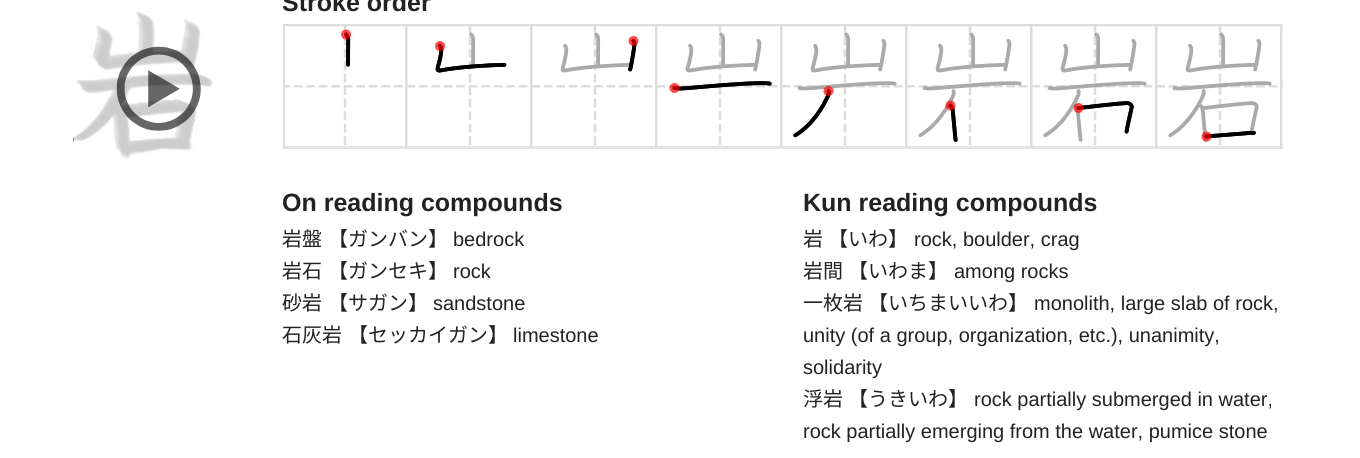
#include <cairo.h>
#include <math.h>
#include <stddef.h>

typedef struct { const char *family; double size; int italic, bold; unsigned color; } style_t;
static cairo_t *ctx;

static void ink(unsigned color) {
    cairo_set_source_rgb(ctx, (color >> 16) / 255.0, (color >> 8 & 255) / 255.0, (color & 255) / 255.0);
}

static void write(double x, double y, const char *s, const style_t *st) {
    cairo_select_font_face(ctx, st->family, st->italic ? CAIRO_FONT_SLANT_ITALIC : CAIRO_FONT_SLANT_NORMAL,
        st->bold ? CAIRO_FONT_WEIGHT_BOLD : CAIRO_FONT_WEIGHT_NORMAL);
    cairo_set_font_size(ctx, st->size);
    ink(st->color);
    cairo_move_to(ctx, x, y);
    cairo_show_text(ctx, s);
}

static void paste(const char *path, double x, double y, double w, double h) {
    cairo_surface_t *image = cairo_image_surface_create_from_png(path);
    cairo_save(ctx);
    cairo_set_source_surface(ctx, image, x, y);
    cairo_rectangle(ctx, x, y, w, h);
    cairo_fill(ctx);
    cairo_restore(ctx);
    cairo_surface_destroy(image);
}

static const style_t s1 = {"Liberation Sans", 25, 0, 1, 0x222222};
static const style_t s2 = {"Noto Sans CJK JP", 20, 0, 0, 0x222222};
static const style_t s3 = {"Liberation Sans", 20, 0, 0, 0x222222};

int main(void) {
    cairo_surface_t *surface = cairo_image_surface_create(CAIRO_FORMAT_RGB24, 1360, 458);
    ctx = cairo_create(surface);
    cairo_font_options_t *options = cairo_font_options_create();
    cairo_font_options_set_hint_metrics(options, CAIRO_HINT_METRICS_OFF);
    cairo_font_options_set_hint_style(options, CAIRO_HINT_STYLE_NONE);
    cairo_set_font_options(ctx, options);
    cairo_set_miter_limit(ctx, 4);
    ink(0xffffff);
    cairo_paint(ctx);
    write(282, 11, "Stroke order", &s1);
    paste("pic1.png", 283, 24, 1000, 125);
    paste("pic2.png", 73, 11, 141, 149);
    paste("pic3.png", 116, 46, 85, 85);
    write(282, 211, "On reading compounds", &s1);
    write(282, 246, "岩盤", &s2);
    write(328, 246, "【ガンバン】", &s2);
    write(453, 246, "bedrock", &s3);
    write(282, 278, "岩石", &s2);
    write(328, 278, "【ガンセキ】", &s2);
    write(453, 278, "rock", &s3);
    write(282, 310, "砂岩", &s2);
    write(328, 310, "【サガン】", &s2);
    write(433, 310, "sandstone", &s3);
    write(282, 342, "石灰岩", &s2);
    write(348, 342, "【セッカイガン】", &s2);
    write(513, 342, "limestone", &s3);
    write(803, 211, "Kun reading compounds", &s1);
    write(803, 246, "岩", &s2);
    write(828, 246, "【いわ】", &s2);
    write(914, 246, "rock, boulder, crag", &s3);
    write(803, 278, "岩間", &s2);
    write(848, 278, "【いわま】", &s2);
    write(954, 278, "among rocks", &s3);
    write(803, 310, "一枚岩", &s2);
    write(868, 310, "【いちまいいわ】", &s2);
    write(1034, 310, "monolith, large slab of rock,", &s3);
    write(803, 342, "unity (of a group, organization, etc.), unanimity,", &s3);
    write(803, 374, "solidarity", &s3);
    write(803, 406, "浮岩", &s2);
    write(848, 406, "【うきいわ】", &s2);
    write(974, 406, "rock partially submerged in water,", &s3);
    write(803, 438, "rock partially emerging from the water, pumice stone", &s3);
    cairo_surface_write_to_png(surface, "screenshot.png");
    cairo_font_options_destroy(options);
    cairo_destroy(ctx);
    cairo_surface_destroy(surface);
    return 0;
}
